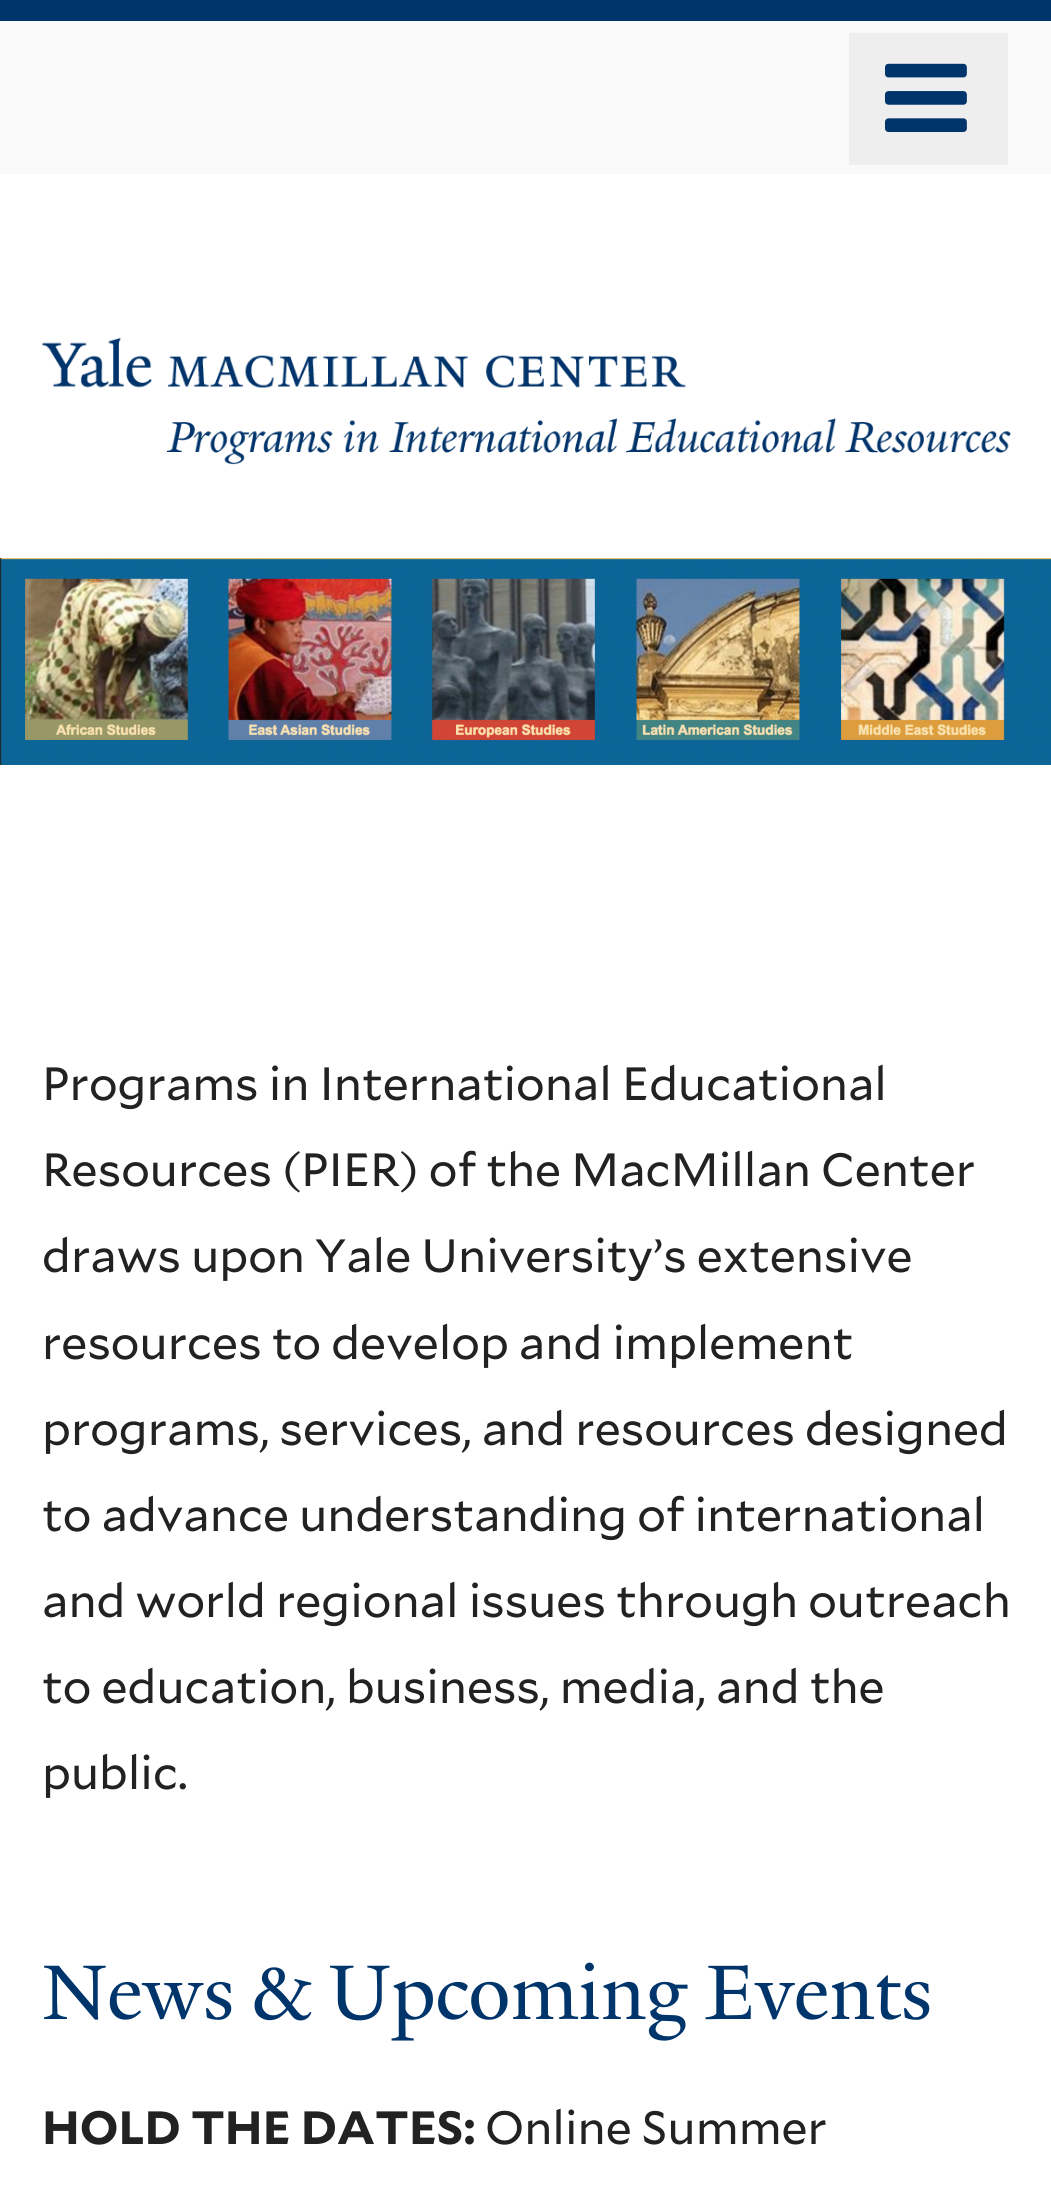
#include <cairo.h>
#include <math.h>
#include <stddef.h>

typedef struct { const char *family; double size; int italic, bold; unsigned color; } style_t;
static cairo_t *ctx;

static void ink(unsigned color) {
    cairo_set_source_rgb(ctx, (color >> 16) / 255.0, (color >> 8 & 255) / 255.0, (color & 255) / 255.0);
}

static void write(double x, double y, const char *s, const style_t *st) {
    cairo_select_font_face(ctx, st->family, st->italic ? CAIRO_FONT_SLANT_ITALIC : CAIRO_FONT_SLANT_NORMAL,
        st->bold ? CAIRO_FONT_WEIGHT_BOLD : CAIRO_FONT_WEIGHT_NORMAL);
    cairo_set_font_size(ctx, st->size);
    ink(st->color);
    cairo_move_to(ctx, x, y);
    cairo_show_text(ctx, s);
}

static void write_spaced(double x, double y, const char *s, double letter, double word) {
    cairo_move_to(ctx, x, y);
    while (*s) {
        char ch[5] = {0};
        int n = 0;
        do ch[n++] = *s++; while ((*s & 0xC0) == 0x80);
        cairo_show_text(ctx, ch);
        cairo_rel_move_to(ctx, letter + word * (*ch == ' '), 0);
    }
}

static void block(double x, double y, double w, double h, unsigned color) {
    ink(color);
    cairo_rectangle(ctx, x, y, w, h);
    cairo_fill(ctx);
}

static void paste(const char *path, double x, double y, double w, double h) {
    cairo_surface_t *image = cairo_image_surface_create_from_png(path);
    cairo_save(ctx);
    cairo_set_source_surface(ctx, image, x, y);
    cairo_rectangle(ctx, x, y, w, h);
    cairo_fill(ctx);
    cairo_restore(ctx);
    cairo_surface_destroy(image);
}

static const style_t s1 = {"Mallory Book", 46.6, 0, 0, 0x222222};
static const style_t s2 = {"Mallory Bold", 46.6, 0, 1, 0x222222};

int main(void) {
    cairo_surface_t *surface = cairo_image_surface_create(CAIRO_FORMAT_RGB24, 1051, 2191);
    ctx = cairo_create(surface);
    cairo_font_options_t *options = cairo_font_options_create();
    cairo_font_options_set_hint_metrics(options, CAIRO_HINT_METRICS_OFF);
    cairo_font_options_set_hint_style(options, CAIRO_HINT_STYLE_NONE);
    cairo_set_font_options(ctx, options);
    cairo_set_miter_limit(ctx, 4);
    ink(0xffffff);
    cairo_paint(ctx);
    block(0, 0, 1051, 21, 0x00356b);
    block(0, 21, 1051, 153, 0xf9f9f9);
    block(849, 33, 159, 132, 0xeeeeee);
    paste("pic1.png", 885, 63, 82, 69);
    paste("pic2.png", 42, 337, 969, 128);
    paste("pic3.png", 0, 558, 1051, 207);
    write(42, 1100, "Programs in International Educational", &s1);
    write(42, 1186, "Resources (PIER) of the MacMillan Center", &s1);
    write(42, 1272, "draws upon Yale University’s extensive", &s1);
    write(42, 1359, "resources to develop and implement", &s1);
    write(42, 1445, "programs, services, and resources designed", &s1);
    write(42, 1531, "to advance understanding of international", &s1);
    write(42, 1617, "and world regional issues through outreach", &s1);
    write(42, 1703, "to education, business, media, and the", &s1);
    write(42, 1789, "public.", &s1);
    cairo_select_font_face(ctx, "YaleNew", CAIRO_FONT_SLANT_NORMAL, CAIRO_FONT_WEIGHT_NORMAL);
    cairo_set_font_size(ctx, 83.9);
    ink(0x00356b);
    write_spaced(42, 2019, "News & Upcoming Events", 0, -1);
    write(42, 2144, "HOLD THE DATES:", &s2);
    write(485, 2144, "Online Summer", &s1);
    cairo_surface_write_to_png(surface, "screenshot.png");
    cairo_font_options_destroy(options);
    cairo_destroy(ctx);
    cairo_surface_destroy(surface);
    return 0;
}
